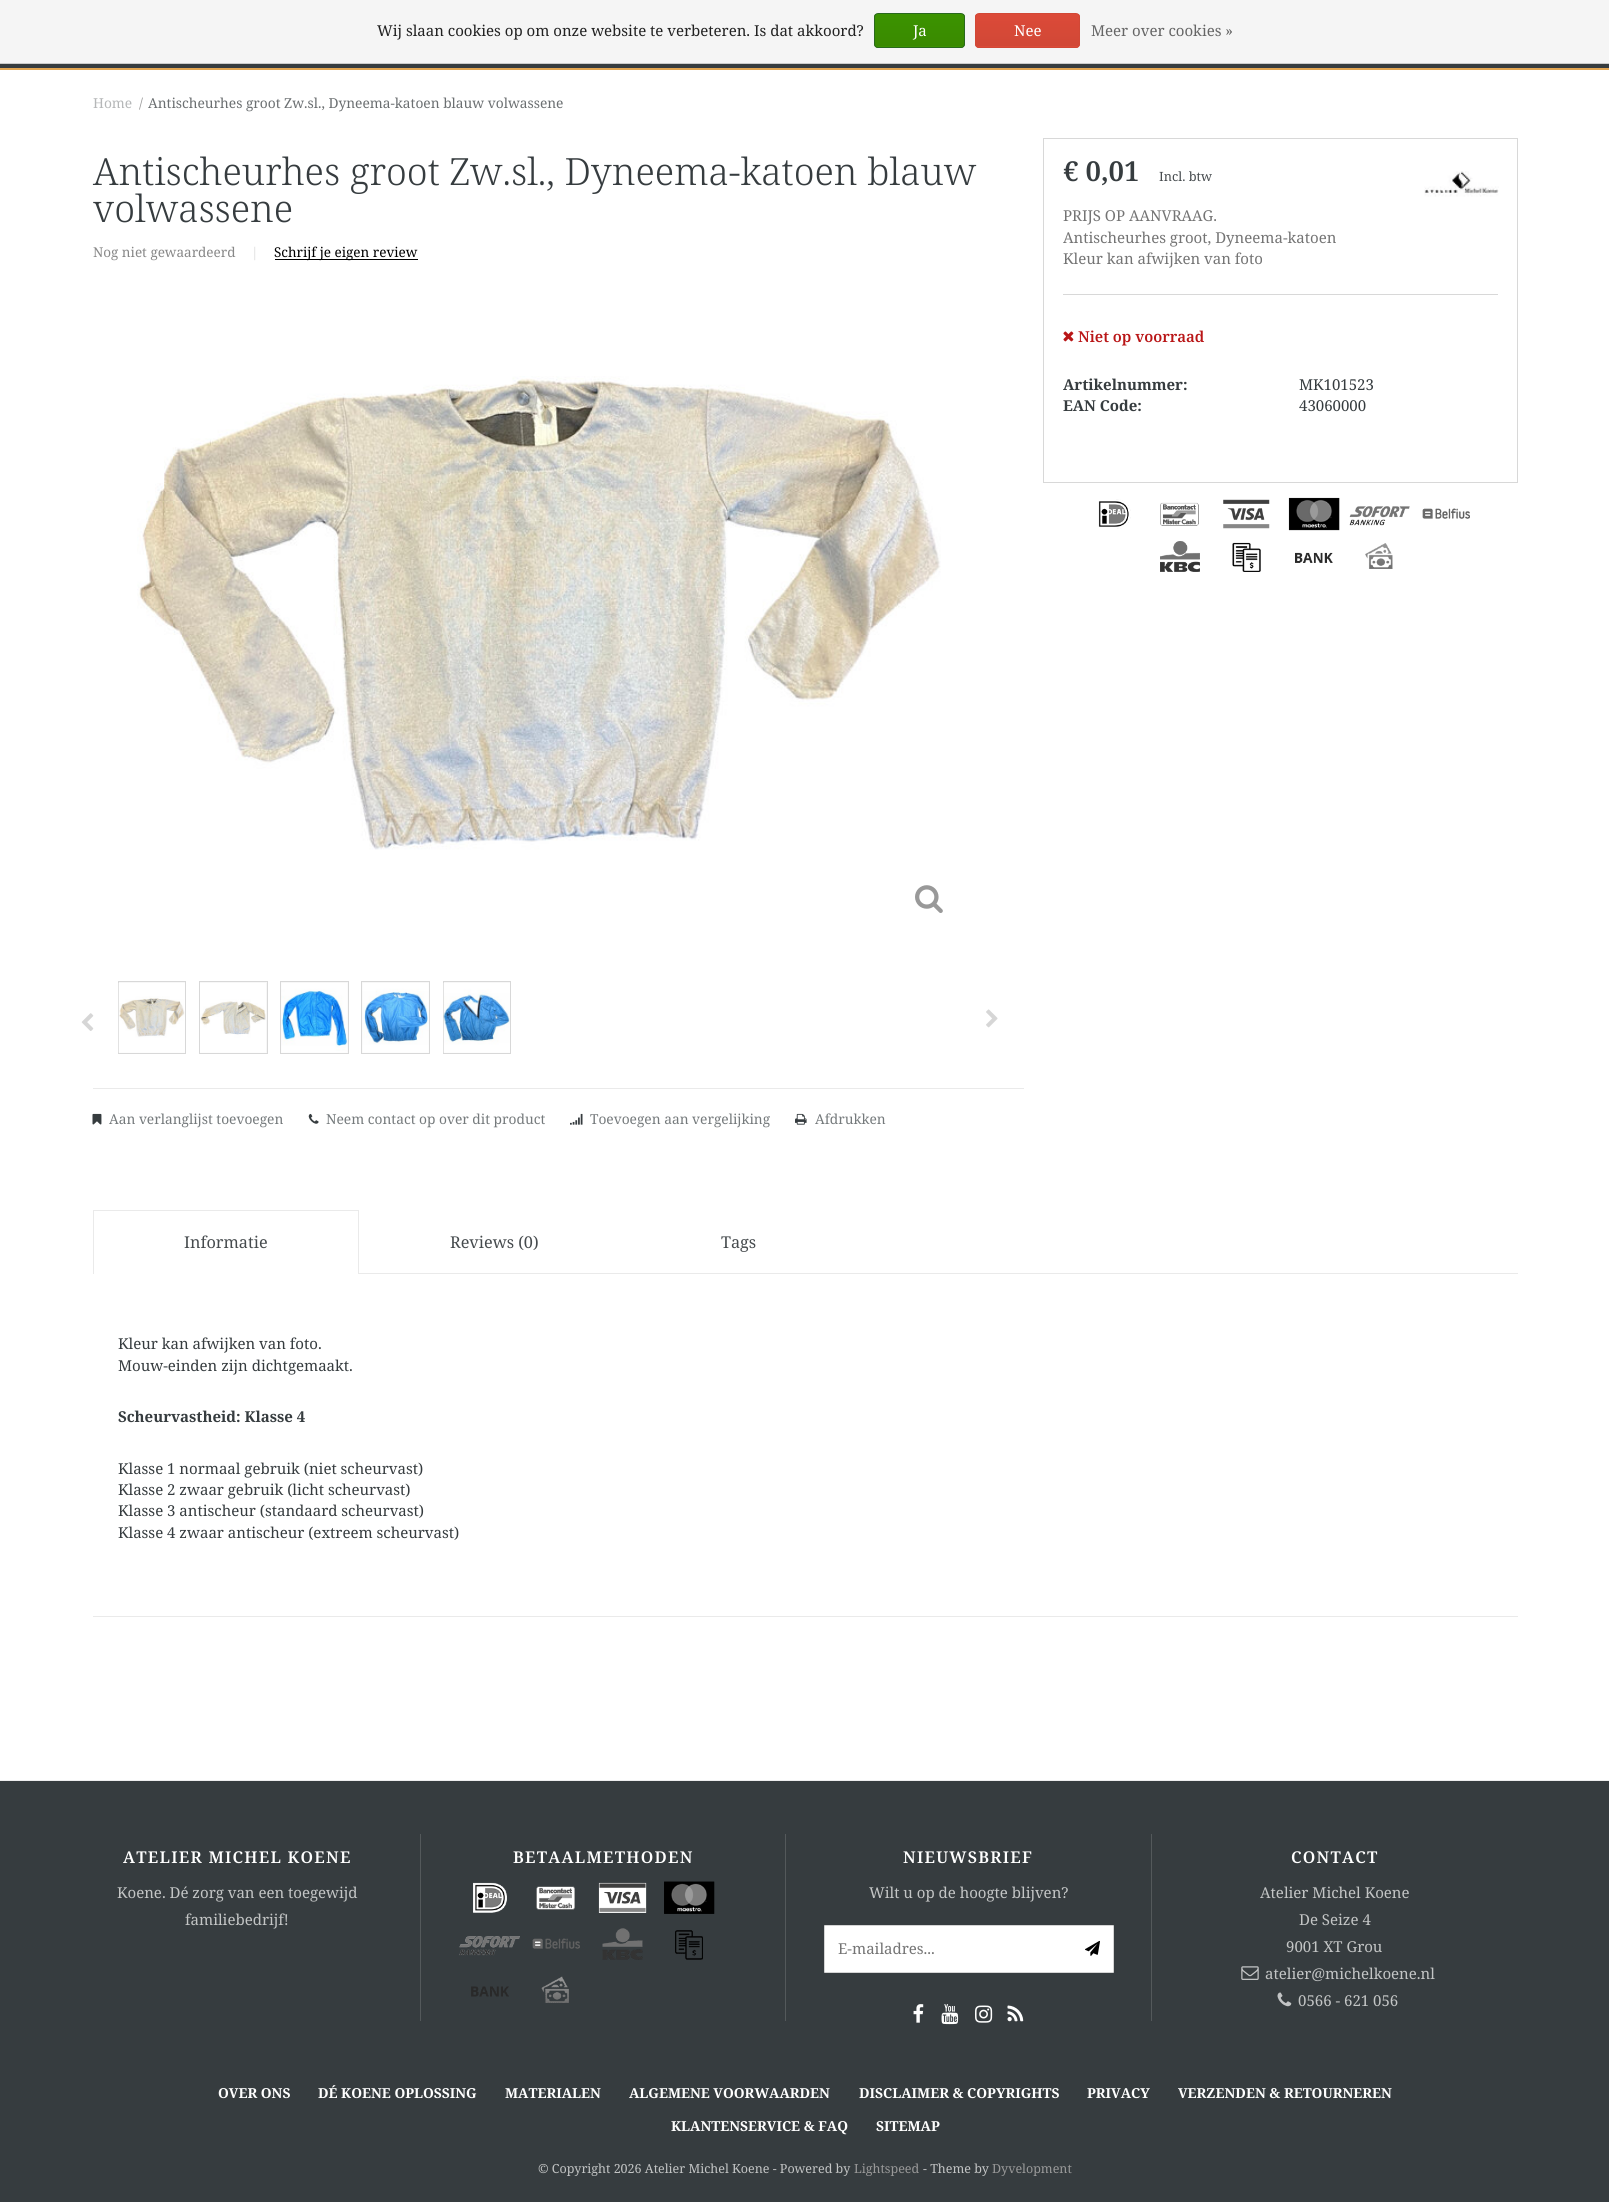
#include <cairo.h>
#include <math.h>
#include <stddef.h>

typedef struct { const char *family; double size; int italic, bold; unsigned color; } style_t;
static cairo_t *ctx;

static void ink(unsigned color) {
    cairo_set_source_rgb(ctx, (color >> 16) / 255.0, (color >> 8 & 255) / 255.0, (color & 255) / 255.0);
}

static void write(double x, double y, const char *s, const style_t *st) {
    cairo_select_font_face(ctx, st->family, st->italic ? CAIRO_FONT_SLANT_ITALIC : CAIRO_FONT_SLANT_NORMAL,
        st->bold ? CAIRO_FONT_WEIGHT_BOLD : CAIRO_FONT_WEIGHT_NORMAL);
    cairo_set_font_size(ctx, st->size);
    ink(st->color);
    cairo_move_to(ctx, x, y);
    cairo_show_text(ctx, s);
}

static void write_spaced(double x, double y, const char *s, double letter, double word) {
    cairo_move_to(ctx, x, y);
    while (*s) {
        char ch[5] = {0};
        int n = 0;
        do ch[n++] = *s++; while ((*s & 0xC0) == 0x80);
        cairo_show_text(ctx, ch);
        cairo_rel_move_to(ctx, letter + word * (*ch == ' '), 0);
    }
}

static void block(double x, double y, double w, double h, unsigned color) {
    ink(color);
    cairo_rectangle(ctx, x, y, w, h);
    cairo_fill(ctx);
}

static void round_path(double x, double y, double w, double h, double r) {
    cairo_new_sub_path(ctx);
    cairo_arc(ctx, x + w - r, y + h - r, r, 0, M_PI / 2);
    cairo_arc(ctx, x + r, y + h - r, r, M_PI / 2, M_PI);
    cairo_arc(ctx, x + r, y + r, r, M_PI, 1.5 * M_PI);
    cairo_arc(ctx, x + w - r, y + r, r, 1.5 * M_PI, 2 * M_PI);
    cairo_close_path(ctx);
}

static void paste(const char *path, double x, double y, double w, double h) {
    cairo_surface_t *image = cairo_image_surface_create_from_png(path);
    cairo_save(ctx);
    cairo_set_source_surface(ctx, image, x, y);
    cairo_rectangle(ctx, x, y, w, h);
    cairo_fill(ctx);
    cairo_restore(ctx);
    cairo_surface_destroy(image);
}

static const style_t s1 = {"Noto Serif", 15, 0, 0, 0x222222};
static const style_t s2 = {"Noto Serif", 15, 0, 0, 0xffffff};
static const style_t s3 = {"Noto Serif", 15, 0, 0, 0x666666};
static const style_t s4 = {"Noto Serif", 13.75, 0, 0, 0xb5b7b8};
static const style_t s5 = {"Noto Serif", 13.75, 0, 0, 0x6b6f71};
static const style_t s6 = {"Noto Serif Light", 37.5, 0, 0, 0x363c3f};
static const style_t s7 = {"Noto Serif", 13.5, 0, 0, 0x888888};
static const style_t s8 = {"Noto Serif", 13.5, 0, 0, 0xdddddd};
static const style_t s9 = {"Noto Serif", 13.5, 0, 0, 0x000000};
static const style_t s10 = {"Noto Serif", 13.75, 0, 0, 0x757a7c};
static const style_t s11 = {"Noto Serif SemiBold", 27.5, 0, 0, 0x363c3f};
static const style_t s12 = {"Noto Serif", 12.75, 0, 0, 0x464b4e};
static const style_t s13 = {"Noto Serif", 15, 0, 0, 0x747474};
static const style_t s14 = {"Noto Serif SemiBold", 15, 0, 0, 0xb91617};
static const style_t s15 = {"Noto Serif", 15, 0, 1, 0x363c3f};
static const style_t s16 = {"Noto Serif", 15, 0, 0, 0x363c3f};
static const style_t s17 = {"Noto Serif", 16.25, 0, 0, 0x464b4e};
static const style_t s18 = {"Noto Serif", 15, 0, 0, 0xc3c5c5};
static const style_t s19 = {"Noto Serif", 13.75, 0, 1, 0xffffff};
static const style_t s20 = {"Noto Serif", 12.5, 0, 0, 0xc3c5c5};
static const style_t s21 = {"Noto Serif", 12.5, 0, 0, 0x999999};

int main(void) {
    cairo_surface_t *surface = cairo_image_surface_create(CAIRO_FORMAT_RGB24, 1609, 2202);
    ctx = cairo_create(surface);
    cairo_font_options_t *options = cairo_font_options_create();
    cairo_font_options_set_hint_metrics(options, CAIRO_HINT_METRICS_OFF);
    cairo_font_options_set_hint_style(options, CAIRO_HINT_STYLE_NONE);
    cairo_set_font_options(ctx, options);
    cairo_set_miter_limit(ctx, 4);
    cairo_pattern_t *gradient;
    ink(0xffffff);
    cairo_paint(ctx);
    block(0, 0, 1609, 63, 0xf5f5f5);
    block(0, 63, 1609, 1, 0xcccccc);
    write(377, 36, "Wij slaan cookies op om onze website te verbeteren. Is dat akkoord?", &s1);
    cairo_save(ctx);
    round_path(874, 13, 91, 35, 4);
    cairo_clip(ctx);
    gradient = cairo_pattern_create_linear(919, 14, 919, 46);
    cairo_pattern_add_color_stop_rgba(gradient, 0, 0.235, 0.576, 0, 1);
    cairo_pattern_add_color_stop_rgba(gradient, 1, 0.224, 0.541, 0, 1);
    cairo_set_source(ctx, gradient);
    cairo_pattern_destroy(gradient);
    cairo_rectangle(ctx, 874, 14, 91, 32);
    cairo_fill(ctx);
    gradient = cairo_pattern_create_linear(919, 46, 919, 79);
    cairo_pattern_add_color_stop_rgba(gradient, 0, 0.235, 0.576, 0, 1);
    cairo_pattern_add_color_stop_rgba(gradient, 1, 0.224, 0.541, 0, 1);
    cairo_set_source(ctx, gradient);
    cairo_pattern_destroy(gradient);
    cairo_rectangle(ctx, 874, 46, 91, 2);
    cairo_fill(ctx);
    cairo_restore(ctx);
    round_path(874.5, 13.5, 90, 34, 3.5);
    ink(0x29691d);
    cairo_set_line_width(ctx, 1);
    cairo_stroke(ctx);
    write(913, 36, "Ja", &s2);
    cairo_save(ctx);
    round_path(975, 13, 105, 35, 4);
    cairo_clip(ctx);
    gradient = cairo_pattern_create_linear(1028, 14, 1028, 46);
    cairo_pattern_add_color_stop_rgba(gradient, 0, 0.863, 0.29, 0.22, 1);
    cairo_pattern_add_color_stop_rgba(gradient, 1, 0.82, 0.282, 0.212, 1);
    cairo_set_source(ctx, gradient);
    cairo_pattern_destroy(gradient);
    cairo_rectangle(ctx, 975, 14, 105, 32);
    cairo_fill(ctx);
    gradient = cairo_pattern_create_linear(1028, 46, 1028, 79);
    cairo_pattern_add_color_stop_rgba(gradient, 0, 0.863, 0.29, 0.22, 1);
    cairo_pattern_add_color_stop_rgba(gradient, 1, 0.82, 0.282, 0.212, 1);
    cairo_set_source(ctx, gradient);
    cairo_pattern_destroy(gradient);
    cairo_rectangle(ctx, 975, 46, 105, 2);
    cairo_fill(ctx);
    cairo_restore(ctx);
    round_path(975.5, 13.5, 104, 34, 3.5);
    ink(0xd14836);
    cairo_stroke(ctx);
    write(1014, 36, "Nee", &s2);
    write(1091, 36, "Meer over cookies »", &s3);
    block(0, 64, 1609, 4, 0x363c3f);
    block(0, 68, 1609, 2, 0xe2a552);
    write(93, 108, "Home", &s4);
    ink(0x999999);
    write_spaced(139, 108, "/", -2, 0);
    write(148, 108, "Antischeurhes groot Zw.sl., Dyneema-katoen blauw volwassene", &s5);
    write(93, 185, "Antischeurhes groot Zw.sl., Dyneema-katoen blauw", &s6);
    write(93, 222, "volwassene", &s6);
    write(93, 257, "Nog niet gewaardeerd", &s7);
    write(251, 257, "|", &s8);
    block(275, 259, 143, 1, 0x000000);
    write(274, 257, "Schrijf je eigen review", &s9);
    paste("pic1.png", 137, 376, 804, 474);
    paste("pic2.png", 915, 885, 28, 28);
    paste("pic3.png", 81, 1013, 13, 18);
    ink(0xf7f7f7);
    cairo_rectangle(ctx, 118.5, 981.5, 67, 72);
    cairo_fill_preserve(ctx);
    ink(0xd8d8d8);
    cairo_stroke(ctx);
    paste("pic4.png", 118, 983, 67, 70);
    ink(0xf7f7f7);
    cairo_rectangle(ctx, 199.5, 981.5, 68, 72);
    cairo_fill_preserve(ctx);
    ink(0xd8d8d8);
    cairo_stroke(ctx);
    paste("pic5.png", 200, 983, 66, 70);
    ink(0xf7f7f7);
    cairo_rectangle(ctx, 280.5, 981.5, 68, 72);
    cairo_fill_preserve(ctx);
    ink(0xd8d8d8);
    cairo_stroke(ctx);
    paste("pic6.png", 281, 983, 67, 70);
    ink(0xf7f7f7);
    cairo_rectangle(ctx, 361.5, 981.5, 68, 72);
    cairo_fill_preserve(ctx);
    ink(0xd8d8d8);
    cairo_stroke(ctx);
    paste("pic7.png", 362, 983, 67, 70);
    ink(0xf7f7f7);
    cairo_rectangle(ctx, 443.5, 981.5, 67, 72);
    cairo_fill_preserve(ctx);
    ink(0xd8d8d8);
    cairo_stroke(ctx);
    paste("pic8.png", 443, 983, 67, 70);
    paste("pic9.png", 986, 1009, 12, 19);
    block(93, 1088, 931, 1, 0xeaeaea);
    paste("pic10.png", 92, 1113, 10, 12);
    write(109, 1124, "Aan verlanglijst toevoegen", &s10);
    paste("pic11.png", 308, 1113, 11, 11);
    write(326, 1124, "Neem contact op over dit product", &s10);
    paste("pic12.png", 570, 1113, 13, 12);
    write(590, 1124, "Toevoegen aan vergelijking", &s10);
    paste("pic13.png", 795, 1113, 12, 12);
    write(815, 1124, "Afdrukken", &s10);
    cairo_rectangle(ctx, 1043.5, 138.5, 474, 344);
    ink(0xd8d8d8);
    cairo_stroke(ctx);
    write(1063, 181, "€ 0,01", &s11);
    write(1159, 181, "Incl. btw", &s12);
    paste("pic14.png", 1424, 171, 75, 26);
    block(1063, 294, 435, 1, 0xd8d8d8);
    write(1063, 221, "PRIJS OP AANVRAAG.", &s13);
    write(1063, 243, "Antischeurhes groot, Dyneema-katoen", &s13);
    write(1063, 264, "Kleur kan afwijken van foto", &s13);
    paste("pic15.png", 1063, 331, 11, 11);
    write(1078, 342, "Niet op voorraad", &s14);
    write(1063, 390, "Artikelnummer:", &s15);
    write(1299, 390, "MK101523", &s16);
    write(1063, 411, "EAN Code:", &s15);
    write(1299, 411, "43060000", &s16);
    paste("pic16.png", 1098, 499, 33, 30);
    paste("pic17.png", 1160, 502, 39, 24);
    paste("pic18.png", 1223, 499, 47, 30);
    paste("pic19.png", 1288, 497, 52, 34);
    paste("pic20.png", 1349, 506, 61, 20);
    paste("pic21.png", 1422, 508, 48, 11);
    paste("pic22.png", 1160, 541, 40, 31);
    paste("pic23.png", 1232, 542, 29, 30);
    paste("pic24.png", 1295, 552, 38, 11);
    paste("pic25.png", 1365, 543, 28, 26);
    block(359, 1273, 1159, 1, 0xeaeaea);
    block(93, 1210, 266, 1, 0xeaeaea);
    block(358, 1210, 1, 64, 0xeaeaea);
    block(93, 1210, 1, 64, 0xeaeaea);
    write(184, 1248, "Informatie", &s17);
    write(450, 1248, "Reviews (0)", &s17);
    write(721, 1248, "Tags", &s17);
    block(93, 1616, 1425, 1, 0xeaeaea);
    write(118, 1349, "Kleur kan afwijken van foto.", &s16);
    write(118, 1371, "Mouw-einden zijn dichtgemaakt.", &s16);
    write(118, 1422, "Scheurvastheid: Klasse 4", &s15);
    write(118, 1474, "Klasse 1 normaal gebruik (niet scheurvast)", &s16);
    write(118, 1495, "Klasse 2 zwaar gebruik (licht scheurvast)", &s16);
    write(118, 1516, "Klasse 3 antischeur (standaard scheurvast)", &s16);
    write(118, 1538, "Klasse 4 zwaar antischeur (extreem scheurvast)", &s16);
    block(0, 1781, 1609, 421, 0x363c3f);
    block(0, 1780, 1609, 1, 0xeeeeee);
    block(420, 1834, 1, 187, 0x54595b);
    cairo_select_font_face(ctx, "Noto Serif SemiBold", CAIRO_FONT_SLANT_NORMAL, CAIRO_FONT_WEIGHT_NORMAL);
    cairo_set_font_size(ctx, 16.25);
    ink(0xffffff);
    write_spaced(123, 1863, "ATELIER MICHEL KOENE", 1.25, 0);
    write(117, 1898, "Koene. Dé zorg van een toegewijd", &s18);
    write(185, 1925, "familiebedrijf!", &s18);
    block(785, 1834, 1, 187, 0x54595b);
    cairo_select_font_face(ctx, "Noto Serif SemiBold", CAIRO_FONT_SLANT_NORMAL, CAIRO_FONT_WEIGHT_NORMAL);
    cairo_set_font_size(ctx, 16.25);
    ink(0xffffff);
    write_spaced(513, 1863, "BETAALMETHODEN", 1.25, 0);
    paste("pic26.png", 473, 1882, 34, 31);
    paste("pic27.png", 536, 1886, 39, 24);
    paste("pic28.png", 598, 1882, 49, 31);
    paste("pic29.png", 664, 1881, 51, 33);
    paste("pic30.png", 459, 1936, 61, 20);
    paste("pic31.png", 532, 1938, 48, 11);
    paste("pic32.png", 602, 1928, 41, 32);
    paste("pic33.png", 675, 1930, 28, 30);
    paste("pic34.png", 471, 1986, 38, 11);
    paste("pic35.png", 541, 1976, 28, 27);
    block(1151, 1834, 1, 187, 0x54595b);
    ink(0xffffff);
    write_spaced(903, 1863, "NIEUWSBRIEF", 1.25, 0);
    write(869, 1898, "Wilt u op de hoogte blijven?", &s18);
    ink(0xffffff);
    round_path(824.5, 1925.5, 289, 47, 0.5);
    cairo_fill_preserve(ctx);
    ink(0xd4d4d4);
    cairo_stroke(ctx);
    write(838, 1954, "E-mailadres...", &s13);
    paste("pic36.png", 1085, 1940, 15, 16);
    paste("pic37.png", 913, 2004, 11, 19);
    paste("pic38.png", 941, 2004, 18, 21);
    paste("pic39.png", 975, 2005, 18, 18);
    paste("pic40.png", 1007, 2005, 17, 17);
    cairo_select_font_face(ctx, "Noto Serif SemiBold", CAIRO_FONT_SLANT_NORMAL, CAIRO_FONT_WEIGHT_NORMAL);
    cairo_set_font_size(ctx, 16.25);
    ink(0xffffff);
    write_spaced(1291, 1863, "CONTACT", 1.25, 0);
    write(1260, 1898, "Atelier Michel Koene", &s18);
    write(1299, 1925, "De Seize 4", &s18);
    write(1286, 1952, "9001 XT Grou", &s18);
    paste("pic41.png", 1241, 1966, 18, 14);
    write(1265, 1979, "atelier@michelkoene.nl", &s18);
    paste("pic42.png", 1277, 1992, 15, 15);
    write(1298, 2006, "0566 - 621 056", &s18);
    write(218, 2098, "OVER ONS", &s19);
    write(318, 2098, "DÉ KOENE OPLOSSING", &s19);
    write(505, 2098, "MATERIALEN", &s19);
    write(629, 2098, "ALGEMENE VOORWAARDEN", &s19);
    write(859, 2098, "DISCLAIMER & COPYRIGHTS", &s19);
    write(1087, 2098, "PRIVACY", &s19);
    write(1178, 2098, "VERZENDEN & RETOURNEREN", &s19);
    write(671, 2131, "KLANTENSERVICE & FAQ", &s19);
    write(876, 2131, "SITEMAP", &s19);
    write(538, 2173, "© Copyright 2026 Atelier Michel Koene - Powered by", &s20);
    write(854, 2173, "Lightspeed", &s21);
    write(923, 2173, "- Theme by", &s20);
    write(992, 2173, "Dyvelopment", &s21);
    cairo_surface_write_to_png(surface, "screenshot.png");
    cairo_font_options_destroy(options);
    cairo_destroy(ctx);
    cairo_surface_destroy(surface);
    return 0;
}
